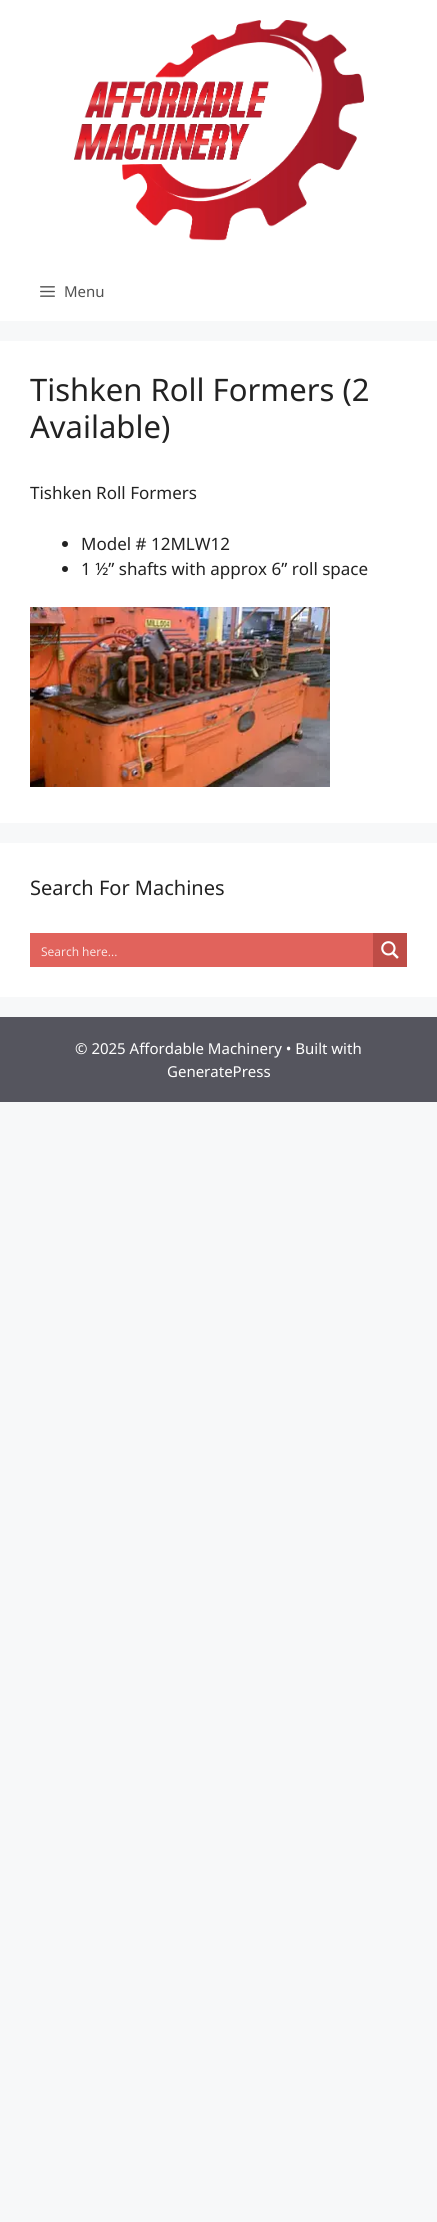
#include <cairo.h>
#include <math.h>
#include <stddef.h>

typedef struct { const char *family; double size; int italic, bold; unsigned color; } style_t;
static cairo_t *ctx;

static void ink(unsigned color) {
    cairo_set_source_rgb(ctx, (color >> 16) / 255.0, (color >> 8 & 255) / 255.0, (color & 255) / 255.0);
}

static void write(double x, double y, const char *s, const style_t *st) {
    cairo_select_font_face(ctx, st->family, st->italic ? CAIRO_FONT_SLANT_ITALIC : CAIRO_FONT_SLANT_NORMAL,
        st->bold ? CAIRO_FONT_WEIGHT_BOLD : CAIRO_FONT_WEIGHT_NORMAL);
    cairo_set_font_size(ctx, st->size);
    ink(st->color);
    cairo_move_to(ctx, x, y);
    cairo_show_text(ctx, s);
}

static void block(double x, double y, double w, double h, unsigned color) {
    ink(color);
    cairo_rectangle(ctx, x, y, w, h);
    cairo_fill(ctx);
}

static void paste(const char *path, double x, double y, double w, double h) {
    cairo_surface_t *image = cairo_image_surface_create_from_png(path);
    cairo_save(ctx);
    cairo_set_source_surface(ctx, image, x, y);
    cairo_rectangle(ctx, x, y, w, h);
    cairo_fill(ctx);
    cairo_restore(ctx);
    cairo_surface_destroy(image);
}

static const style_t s1 = {"Noto Sans", 15, 0, 0, 0x515151};
static const style_t s2 = {"Noto Sans", 31, 0, 0, 0x222222};
static const style_t s3 = {"Noto Sans", 17, 0, 0, 0x222222};
static const style_t s4 = {"Noto Sans", 20, 0, 0, 0x222222};
static const style_t s5 = {"Open Sans", 12, 0, 0, 0xfbe8e7};
static const style_t s6 = {"Noto Sans", 15, 0, 0, 0xffffff};

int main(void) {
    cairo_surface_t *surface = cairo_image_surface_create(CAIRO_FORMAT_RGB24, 437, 2222);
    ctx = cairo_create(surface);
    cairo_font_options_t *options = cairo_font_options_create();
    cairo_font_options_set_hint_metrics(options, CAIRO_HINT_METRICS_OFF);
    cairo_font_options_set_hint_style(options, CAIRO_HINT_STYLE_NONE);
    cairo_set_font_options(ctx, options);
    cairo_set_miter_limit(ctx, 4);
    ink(0xf7f8f9);
    cairo_paint(ctx);
    block(0, 0, 437, 321, 0xffffff);
    paste("pic1.png", 74, 20, 290, 221);
    paste("pic2.png", 40, 286, 15, 11);
    write(64, 297, "Menu", &s1);
    block(0, 341, 437, 482, 0xffffff);
    write(30, 401, "Tishken Roll Formers (2", &s2);
    write(30, 438, "Available)", &s2);
    write(30, 499, "Tishken Roll Formers", &s3);
    cairo_new_path(ctx);
    cairo_arc(ctx, 65, 544, 3, 0, 2 * M_PI);
    cairo_fill(ctx);
    write(81, 550, "Model # 12MLW12", &s3);
    cairo_new_path(ctx);
    cairo_arc(ctx, 65, 569, 3, 0, 2 * M_PI);
    cairo_fill(ctx);
    write(81, 575, "1 ½” shafts with approx 6” roll space", &s3);
    paste("pic3.png", 30, 607, 300, 180);
    block(0, 843, 437, 154, 0xffffff);
    write(30, 895, "Search For Machines", &s4);
    block(30, 933, 343, 34, 0xe1635c);
    write(41, 956, "Search here...", &s5);
    block(373, 933, 34, 34, 0xbe4c46);
    paste("pic4.png", 381, 941, 18, 18);
    block(0, 1017, 437, 85, 0x55555e);
    write(75, 1054, "© 2025 Affordable Machinery • Built with", &s6);
    write(167, 1077, "GeneratePress", &s6);
    cairo_surface_write_to_png(surface, "screenshot.png");
    cairo_font_options_destroy(options);
    cairo_destroy(ctx);
    cairo_surface_destroy(surface);
    return 0;
}
